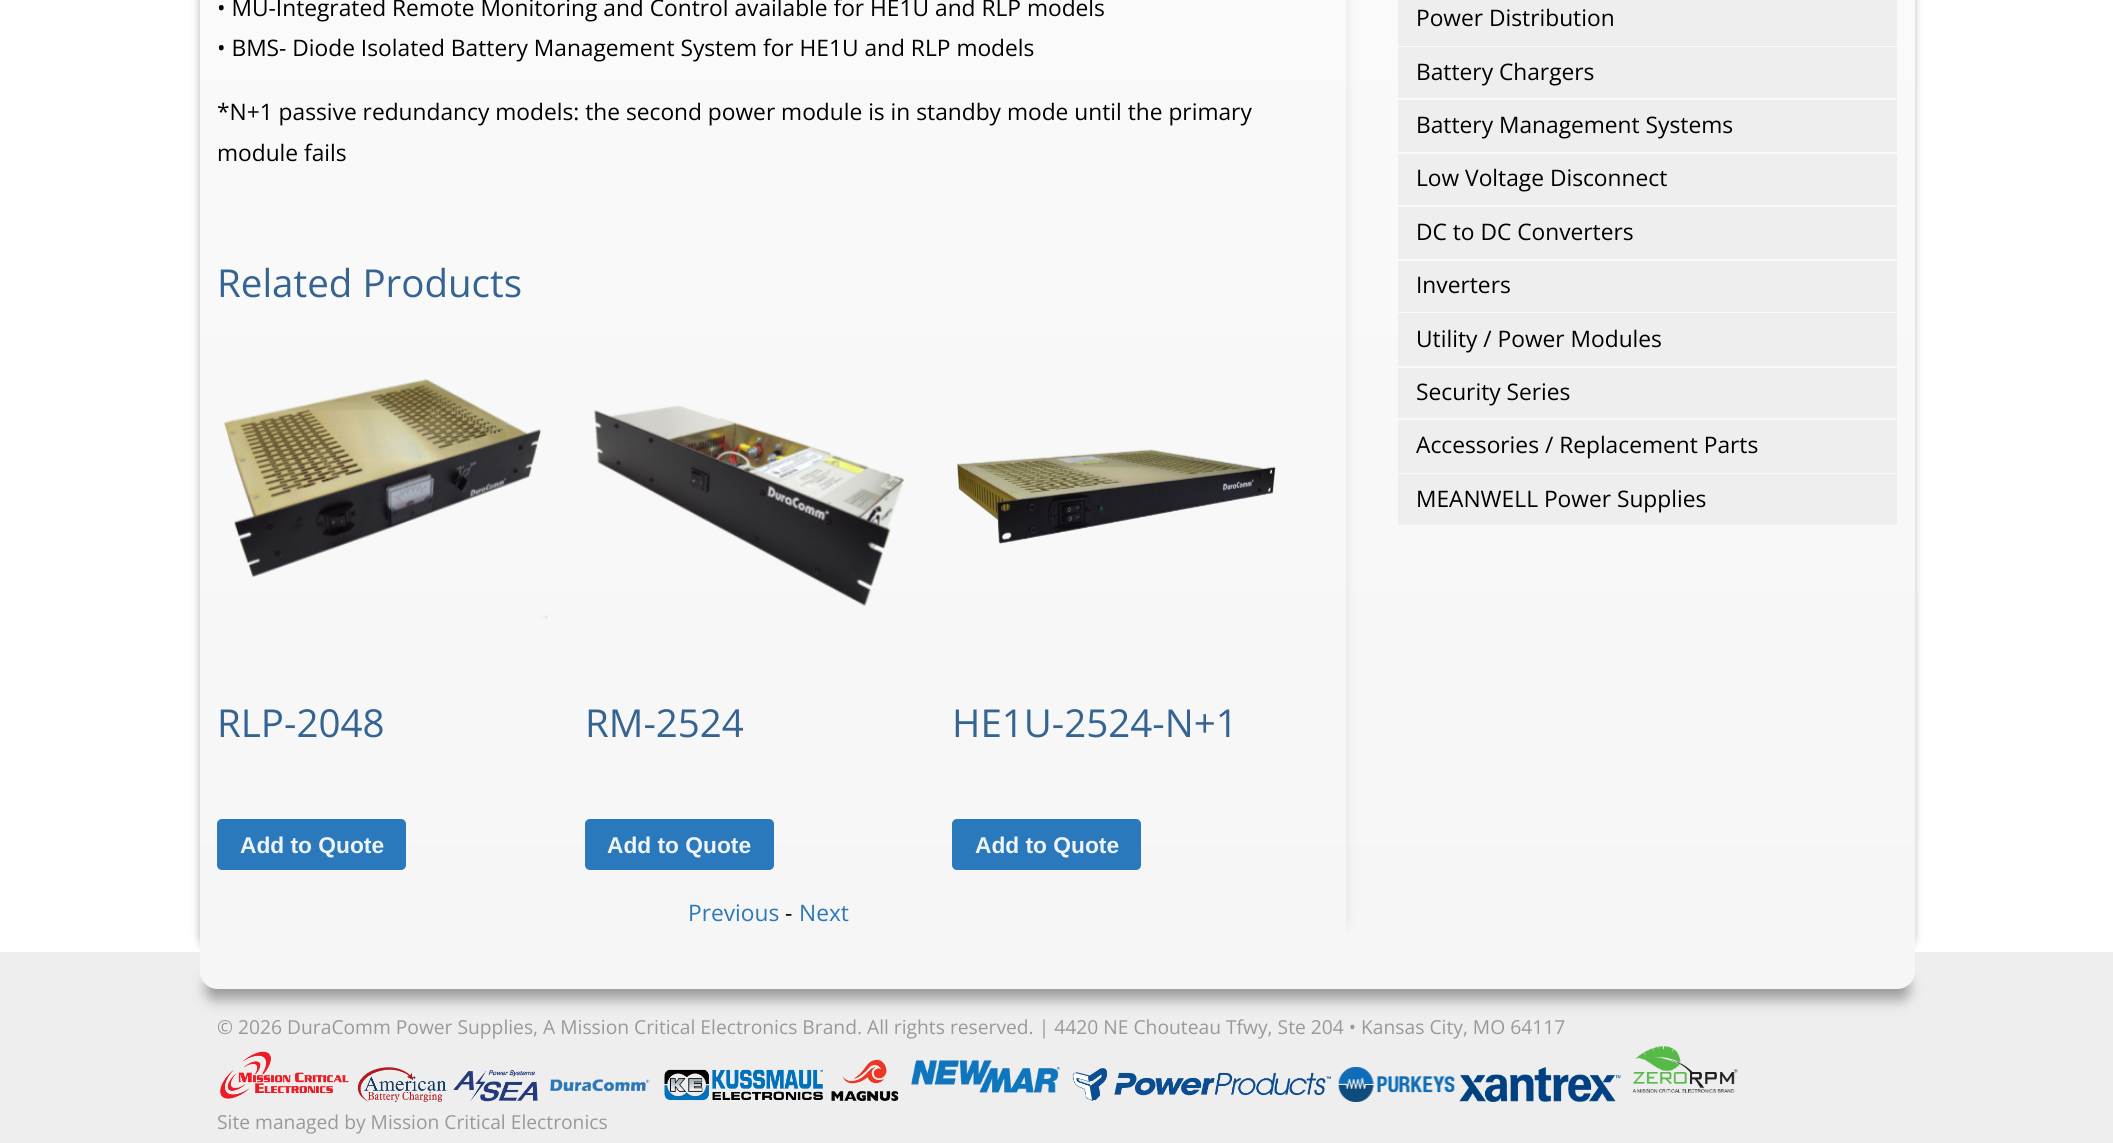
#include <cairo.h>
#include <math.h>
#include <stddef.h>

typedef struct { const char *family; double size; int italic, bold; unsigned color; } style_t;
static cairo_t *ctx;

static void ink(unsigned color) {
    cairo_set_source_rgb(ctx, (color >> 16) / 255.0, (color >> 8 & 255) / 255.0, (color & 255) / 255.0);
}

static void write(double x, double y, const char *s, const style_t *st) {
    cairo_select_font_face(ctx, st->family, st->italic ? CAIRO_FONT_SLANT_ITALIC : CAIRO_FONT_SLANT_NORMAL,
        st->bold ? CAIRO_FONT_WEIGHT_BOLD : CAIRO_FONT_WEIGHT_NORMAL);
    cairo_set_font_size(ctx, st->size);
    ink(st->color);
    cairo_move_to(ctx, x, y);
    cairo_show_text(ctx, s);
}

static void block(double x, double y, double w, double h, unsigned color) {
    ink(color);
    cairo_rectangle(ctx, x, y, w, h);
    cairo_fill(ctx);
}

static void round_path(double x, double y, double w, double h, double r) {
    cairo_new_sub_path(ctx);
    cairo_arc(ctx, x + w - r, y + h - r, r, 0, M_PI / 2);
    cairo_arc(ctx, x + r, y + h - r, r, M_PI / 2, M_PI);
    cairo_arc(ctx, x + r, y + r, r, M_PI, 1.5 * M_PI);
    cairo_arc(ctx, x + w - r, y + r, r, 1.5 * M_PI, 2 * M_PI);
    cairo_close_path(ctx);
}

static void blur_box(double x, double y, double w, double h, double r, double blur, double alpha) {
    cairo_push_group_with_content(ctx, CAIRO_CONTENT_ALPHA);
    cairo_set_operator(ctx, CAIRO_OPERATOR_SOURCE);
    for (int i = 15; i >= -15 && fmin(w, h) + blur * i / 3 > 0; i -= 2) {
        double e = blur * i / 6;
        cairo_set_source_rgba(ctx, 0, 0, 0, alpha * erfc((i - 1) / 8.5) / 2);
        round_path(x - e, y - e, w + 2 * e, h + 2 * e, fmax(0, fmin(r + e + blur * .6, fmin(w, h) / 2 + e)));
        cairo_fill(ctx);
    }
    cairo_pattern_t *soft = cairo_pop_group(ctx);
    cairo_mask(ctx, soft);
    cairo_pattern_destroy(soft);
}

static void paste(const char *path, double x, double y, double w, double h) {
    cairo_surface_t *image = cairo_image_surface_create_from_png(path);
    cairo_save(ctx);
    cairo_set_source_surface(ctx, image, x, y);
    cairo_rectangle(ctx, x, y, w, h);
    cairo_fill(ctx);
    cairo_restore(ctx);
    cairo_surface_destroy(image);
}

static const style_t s1 = {"Open Sans", 22.75, 0, 0, 0x000000};
static const style_t s2 = {"Open Sans", 38.5, 0, 0, 0x356493};
static const style_t s3 = {"Liberation Sans", 22.75, 0, 1, 0xeef4f9};
static const style_t s4 = {"Open Sans", 22.75, 0, 0, 0x2b78bb};
static const style_t s5 = {"Open Sans", 19.25, 0, 0, 0x999999};

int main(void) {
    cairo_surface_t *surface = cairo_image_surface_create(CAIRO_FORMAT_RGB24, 2113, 1143);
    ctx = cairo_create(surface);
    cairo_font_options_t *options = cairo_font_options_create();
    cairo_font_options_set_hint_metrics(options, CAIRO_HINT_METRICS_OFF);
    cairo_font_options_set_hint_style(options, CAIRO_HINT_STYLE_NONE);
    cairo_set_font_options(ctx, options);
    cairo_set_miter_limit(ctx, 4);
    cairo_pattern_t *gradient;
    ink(0xeeeeee);
    cairo_paint(ctx);
    block(0, 0, 2113, 952, 0xffffff);
    ink(0xcccccc);
    blur_box(198, -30, 1718, 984, 19, 3.5, 1);
    gradient = cairo_pattern_create_linear(1057, -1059, 1057, 952);
    cairo_pattern_add_color_stop_rgba(gradient, 0, 0.996, 0.996, 0.996, 1);
    cairo_pattern_add_color_stop_rgba(gradient, 1, 0.965, 0.965, 0.965, 1);
    cairo_set_source(ctx, gradient);
    cairo_pattern_destroy(gradient);
    cairo_rectangle(ctx, 200, 0, 1715, 952);
    cairo_fill(ctx);
    cairo_save(ctx);
    cairo_set_fill_rule(ctx, CAIRO_FILL_RULE_EVEN_ODD);
    cairo_new_path(ctx);
    cairo_move_to(ctx, 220, 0);
    cairo_line_to(ctx, 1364, 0);
    cairo_line_to(ctx, 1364, 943);
    cairo_line_to(ctx, 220, 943);
    cairo_close_path(ctx);
    cairo_move_to(ctx, 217, -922);
    cairo_line_to(ctx, 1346, -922);
    cairo_line_to(ctx, 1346, 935);
    cairo_line_to(ctx, 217, 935);
    cairo_close_path(ctx);
    cairo_clip(ctx);
    ink(0xcccccc);
    blur_box(242, -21, 1100, 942, 0, 7, 1);
    cairo_restore(ctx);
    write(217, 16, "• MU-Integrated Remote Monitoring and Control available for HE1U and RLP models", &s1);
    write(217, 56, "• BMS- Diode Isolated Battery Management System for HE1U and RLP models", &s1);
    write(217, 120, "*N+1 passive redundancy models: the second power module is in standby mode until the primary", &s1);
    write(217, 161, "module fails", &s1);
    write(217, 297, "Related Products", &s2);
    paste("pic1.png", 223, 378, 325, 241);
    write(217, 737, "RLP-2048", &s2);
    ink(0x2b79bd);
    round_path(217, 819, 189, 51, 5);
    cairo_fill(ctx);
    write(240, 853, "Add to Quote", &s3);
    paste("pic2.png", 594, 405, 311, 201);
    write(585, 737, "RM-2524", &s2);
    ink(0x2b79bd);
    round_path(585, 819, 189, 51, 5);
    cairo_fill(ctx);
    write(607, 853, "Add to Quote", &s3);
    paste("pic3.png", 957, 449, 319, 95);
    write(952, 737, "HE1U-2524-N+1", &s2);
    ink(0x2b79bd);
    round_path(952, 819, 189, 51, 5);
    cairo_fill(ctx);
    write(975, 853, "Add to Quote", &s3);
    write(688, 921, "Previous", &s4);
    write(785, 921, "-", &s1);
    write(799, 921, "Next", &s4);
    block(1398, 0, 499, 46, 0xeeeeee);
    write(1416, 26, "Power Distribution", &s1);
    block(1398, 47, 499, 51, 0xeeeeee);
    write(1416, 80, "Battery Chargers", &s1);
    block(1398, 100, 499, 52, 0xeeeeee);
    write(1416, 133, "Battery Management Systems", &s1);
    block(1398, 154, 499, 51, 0xeeeeee);
    write(1416, 186, "Low Voltage Disconnect", &s1);
    block(1398, 207, 499, 52, 0xeeeeee);
    write(1416, 240, "DC to DC Converters", &s1);
    block(1398, 261, 499, 51, 0xeeeeee);
    write(1416, 293, "Inverters", &s1);
    block(1398, 313, 499, 53, 0xeeeeee);
    write(1416, 347, "Utility / Power Modules", &s1);
    block(1398, 368, 499, 50, 0xeeeeee);
    write(1416, 400, "Security Series", &s1);
    block(1398, 420, 499, 53, 0xeeeeee);
    write(1416, 453, "Accessories / Replacement Parts", &s1);
    block(1398, 474, 499, 51, 0xeeeeee);
    write(1416, 507, "MEANWELL Power Supplies", &s1);
    ink(0x999999);
    blur_box(207, 977, 1701, 22, 11, 7, 1);
    ink(0xf6f6f6);
    cairo_new_path(ctx);
    cairo_move_to(ctx, 200, 952);
    cairo_line_to(ctx, 1915, 952);
    cairo_line_to(ctx, 1915, 971);
    cairo_curve_to(ctx, 1915, 981, 1907, 989, 1897, 989);
    cairo_line_to(ctx, 218, 989);
    cairo_curve_to(ctx, 208, 989, 200, 981, 200, 971);
    cairo_close_path(ctx);
    cairo_fill(ctx);
    write(217, 1034, "© 2026 DuraComm Power Supplies, A Mission Critical Electronics Brand. All rights reserved. | 4420 NE Chouteau Tfwy, Ste 204 • Kansas City, MO 64117", &s5);
    paste("pic4.png", 220, 1051, 129, 48);
    paste("pic5.png", 357, 1067, 90, 35);
    paste("pic6.png", 453, 1070, 85, 32);
    paste("pic7.png", 550, 1079, 100, 13);
    paste("pic8.png", 664, 1069, 159, 32);
    paste("pic9.png", 831, 1059, 68, 42);
    paste("pic10.png", 911, 1060, 149, 33);
    paste("pic11.png", 1072, 1068, 260, 33);
    paste("pic12.png", 1338, 1067, 117, 35);
    paste("pic13.png", 1459, 1067, 162, 35);
    paste("pic14.png", 1632, 1046, 106, 47);
    write(217, 1129, "Site managed by Mission Critical Electronics", &s5);
    cairo_surface_write_to_png(surface, "screenshot.png");
    cairo_font_options_destroy(options);
    cairo_destroy(ctx);
    cairo_surface_destroy(surface);
    return 0;
}
